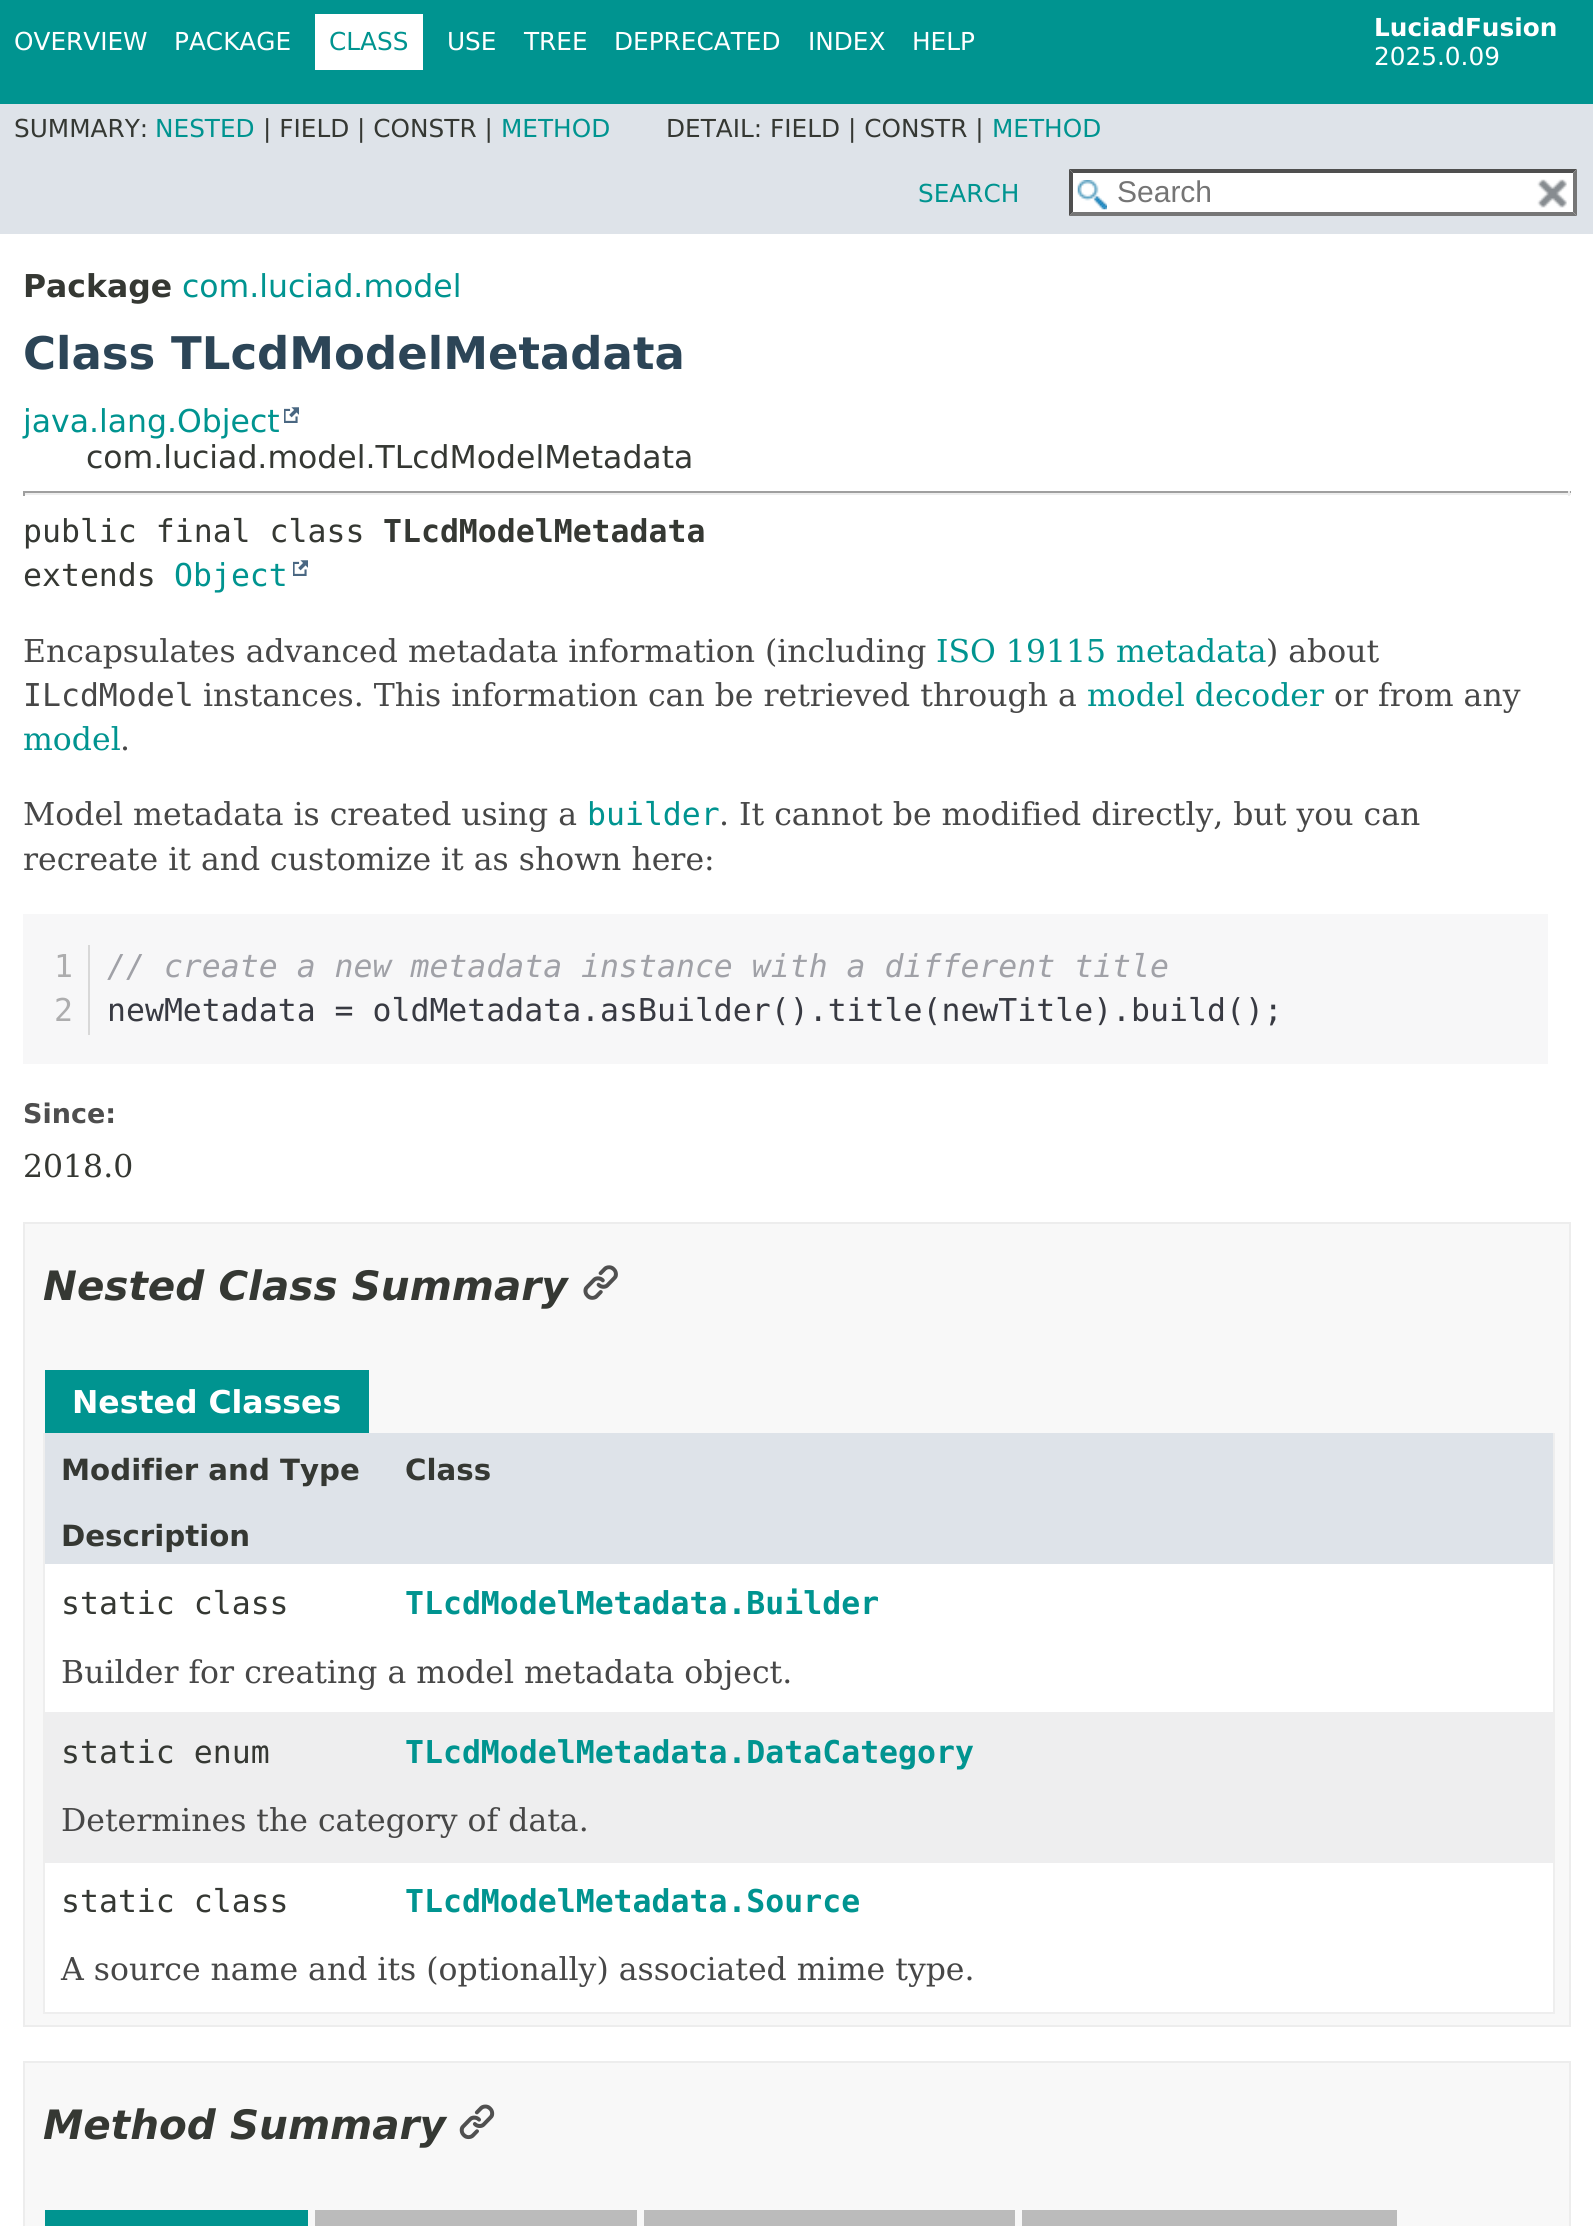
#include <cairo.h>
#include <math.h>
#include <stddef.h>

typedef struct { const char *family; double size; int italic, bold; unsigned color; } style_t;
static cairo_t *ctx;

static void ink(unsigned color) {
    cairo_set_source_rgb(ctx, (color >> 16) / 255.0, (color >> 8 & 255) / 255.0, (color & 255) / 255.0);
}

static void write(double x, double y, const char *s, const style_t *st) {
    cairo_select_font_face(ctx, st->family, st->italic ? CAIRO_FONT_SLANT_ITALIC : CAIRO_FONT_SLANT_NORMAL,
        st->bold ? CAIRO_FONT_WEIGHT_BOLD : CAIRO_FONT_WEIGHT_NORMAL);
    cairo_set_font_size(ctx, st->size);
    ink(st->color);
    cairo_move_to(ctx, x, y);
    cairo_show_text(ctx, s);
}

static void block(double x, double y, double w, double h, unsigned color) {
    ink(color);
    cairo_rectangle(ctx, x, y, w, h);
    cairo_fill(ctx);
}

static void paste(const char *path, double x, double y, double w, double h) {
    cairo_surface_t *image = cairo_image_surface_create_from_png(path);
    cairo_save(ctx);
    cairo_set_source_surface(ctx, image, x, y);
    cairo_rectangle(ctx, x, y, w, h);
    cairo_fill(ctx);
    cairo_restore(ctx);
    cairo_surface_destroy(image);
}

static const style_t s1 = {"DejaVu Sans", 24.75, 0, 0, 0xffffff};
static const style_t s2 = {"DejaVu Sans", 24.75, 0, 0, 0x009490};
static const style_t s3 = {"DejaVu Sans", 24.75, 0, 1, 0xffffff};
static const style_t s4 = {"DejaVu Sans", 24.75, 0, 0, 0x353833};
static const style_t s5 = {"Liberation Sans", 30, 0, 0, 0x757575};
static const style_t s6 = {"DejaVu Sans", 31.5, 0, 1, 0x353833};
static const style_t s7 = {"DejaVu Sans", 31.5, 0, 0, 0x009490};
static const style_t s8 = {"DejaVu Sans", 45, 0, 1, 0x2c4557};
static const style_t s9 = {"DejaVu Sans", 31.5, 0, 0, 0x353833};
static const style_t s10 = {"DejaVu Sans Mono", 31.5, 0, 0, 0x353833};
static const style_t s11 = {"DejaVu Sans Mono", 31.5, 0, 1, 0x353833};
static const style_t s12 = {"DejaVu Sans Mono", 31.5, 0, 0, 0x009490};
static const style_t s13 = {"DejaVu Serif", 31.5, 0, 0, 0x474747};
static const style_t s14 = {"DejaVu Serif", 31.5, 0, 0, 0x009490};
static const style_t s15 = {"DejaVu Sans Mono", 31.5, 0, 0, 0x474747};
static const style_t s16 = {"DejaVu Sans Mono", 31.5, 0, 0, 0xadadae};
static const style_t s17 = {"DejaVu Sans Mono", 31.5, 1, 0, 0xa0a1a7};
static const style_t s18 = {"DejaVu Sans Mono", 31.5, 0, 0, 0x383a42};
static const style_t s19 = {"DejaVu Sans", 27, 0, 1, 0x4e4e4e};
static const style_t s20 = {"DejaVu Serif", 31.5, 0, 0, 0x353833};
static const style_t s21 = {"DejaVu Sans", 40.5, 1, 1, 0x353833};
static const style_t s22 = {"DejaVu Sans", 31.5, 0, 1, 0xffffff};
static const style_t s23 = {"DejaVu Sans", 29.25, 0, 1, 0x353833};
static const style_t s24 = {"DejaVu Sans Mono", 31.5, 0, 1, 0x009490};

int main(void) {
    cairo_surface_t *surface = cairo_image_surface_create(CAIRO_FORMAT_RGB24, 1593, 2226);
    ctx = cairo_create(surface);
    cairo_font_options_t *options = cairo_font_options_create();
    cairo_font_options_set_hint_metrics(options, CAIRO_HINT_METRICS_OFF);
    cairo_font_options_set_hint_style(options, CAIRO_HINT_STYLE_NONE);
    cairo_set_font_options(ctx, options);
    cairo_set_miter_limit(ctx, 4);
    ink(0xffffff);
    cairo_paint(ctx);
    block(0, 0, 1593, 104, 0x009490);
    write(14, 50, "OVERVIEW", &s1);
    write(174, 50, "PACKAGE", &s1);
    block(315, 14, 108, 56, 0xffffff);
    write(329, 50, "CLASS", &s2);
    write(447, 50, "USE", &s1);
    write(524, 50, "TREE", &s1);
    write(614, 50, "DEPRECATED", &s1);
    write(808, 50, "INDEX", &s1);
    write(912, 50, "HELP", &s1);
    write(1374, 36, "LuciadFusion", &s3);
    write(1374, 65, "2025.0.09", &s1);
    block(0, 104, 1593, 130, 0xdee3e9);
    write(14, 137, "SUMMARY:", &s4);
    write(155, 137, "NESTED", &s2);
    write(263, 137, "| FIELD | CONSTR |", &s4);
    write(501, 137, "METHOD", &s2);
    write(666, 137, "DETAIL: FIELD | CONSTR |", &s4);
    write(992, 137, "METHOD", &s2);
    write(918, 202, "SEARCH", &s2);
    block(1069, 169, 508, 47, 0xffffff);
    paste("pic1.png", 1077, 180, 30, 30);
    ink(0x4f4f4f);
    cairo_new_path(ctx);
    cairo_move_to(ctx, 1069, 169);
    cairo_line_to(ctx, 1577, 169);
    cairo_line_to(ctx, 1573, 173);
    cairo_line_to(ctx, 1073, 173);
    cairo_close_path(ctx);
    cairo_fill(ctx);
    ink(0x767676);
    cairo_new_path(ctx);
    cairo_move_to(ctx, 1577, 169);
    cairo_line_to(ctx, 1577, 216);
    cairo_line_to(ctx, 1573, 212);
    cairo_line_to(ctx, 1573, 173);
    cairo_close_path(ctx);
    cairo_fill(ctx);
    cairo_new_path(ctx);
    cairo_move_to(ctx, 1577, 216);
    cairo_line_to(ctx, 1069, 216);
    cairo_line_to(ctx, 1073, 212);
    cairo_line_to(ctx, 1573, 212);
    cairo_close_path(ctx);
    cairo_fill(ctx);
    ink(0x4f4f4f);
    cairo_new_path(ctx);
    cairo_move_to(ctx, 1069, 216);
    cairo_line_to(ctx, 1069, 169);
    cairo_line_to(ctx, 1073, 173);
    cairo_line_to(ctx, 1073, 212);
    cairo_close_path(ctx);
    cairo_fill(ctx);
    write(1117, 202, "Search", &s5);
    paste("pic2.png", 1537, 179, 30, 29);
    write(23, 297, "Package", &s6);
    write(182, 297, "com.luciad.model", &s7);
    write(23, 369, "Class TLcdModelMetadata", &s8);
    write(23, 432, "java.lang.Object", &s7);
    paste("pic3.png", 284, 407, 15, 16);
    write(86, 468, "com.luciad.model.TLcdModelMetadata", &s9);
    block(23, 491, 1548, 2, 0x9f9f9f);
    block(1568, 491, 2, 5, 0xeeeeee);
    block(23, 493, 1548, 2, 0xeeeeee);
    block(23, 491, 2, 5, 0x9f9f9f);
    write(23, 542, "public final class", &s10);
    write(383, 542, "TLcdModelMetadata", &s11);
    write(23, 586, "extends", &s10);
    write(174, 586, "Object", &s12);
    paste("pic3.png", 293, 560, 15, 16);
    write(23, 662, "Encapsulates advanced metadata information (including", &s13);
    write(936, 662, "ISO 19115 metadata", &s14);
    write(1266, 662, ") about", &s13);
    write(23, 706, "ILcdModel", &s15);
    write(203, 706, "instances. This information can be retrieved through a", &s13);
    write(1087, 706, "model decoder", &s14);
    write(1334, 706, "or from any", &s13);
    write(23, 750, "model", &s14);
    write(120, 750, ".", &s13);
    write(23, 825, "Model metadata is created using a", &s13);
    write(587, 825, "builder", &s12);
    write(719, 825, ". It cannot be modified directly, but you can", &s13);
    write(23, 870, "recreate it and customize it as shown here:", &s13);
    block(23, 914, 1525, 150, 0xf7f7f8);
    write(54, 977, "1", &s16);
    write(107, 977, "// create a new metadata instance with a different title", &s17);
    block(88, 945, 2, 90, 0xd8d8d8);
    write(54, 1021, "2", &s16);
    write(107, 1021, "newMetadata = oldMetadata.asBuilder().title(newTitle).build();", &s18);
    write(23, 1123, "Since:", &s19);
    write(23, 1177, "2018.0", &s20);
    ink(0xf8f8f8);
    cairo_rectangle(ctx, 24, 1223, 1546, 803);
    cairo_fill_preserve(ctx);
    ink(0xededed);
    cairo_stroke(ctx);
    write(43, 1300, "Nested Class Summary", &s21);
    paste("pic4.png", 583, 1265, 35, 35);
    block(45, 1370, 324, 63, 0x009490);
    write(72, 1413, "Nested Classes", &s22);
    block(1553, 1433, 2, 581, 0xeeeeee);
    block(43, 2012, 1512, 2, 0xeeeeee);
    block(43, 1433, 2, 581, 0xeeeeee);
    block(45, 1433, 1508, 66, 0xdee3e9);
    write(61, 1480, "Modifier and Type", &s23);
    write(405, 1480, "Class", &s23);
    block(45, 1499, 1508, 65, 0xdee3e9);
    write(61, 1546, "Description", &s23);
    block(45, 1564, 1508, 70, 0xffffff);
    write(61, 1614, "static class", &s10);
    write(405, 1614, "TLcdModelMetadata.Builder", &s24);
    block(45, 1634, 1508, 78, 0xffffff);
    write(61, 1683, "Builder for creating a model metadata object.", &s13);
    block(45, 1712, 1508, 70, 0xeeeeef);
    write(61, 1763, "static enum", &s10);
    write(405, 1763, "TLcdModelMetadata.DataCategory", &s24);
    block(45, 1782, 1508, 81, 0xeeeeef);
    write(61, 1831, "Determines the category of data.", &s13);
    block(45, 1863, 1508, 68, 0xffffff);
    write(61, 1912, "static class", &s10);
    write(405, 1912, "TLcdModelMetadata.Source", &s24);
    block(45, 1931, 1508, 81, 0xffffff);
    write(61, 1980, "A source name and its (optionally) associated mime type.", &s13);
    ink(0xf8f8f8);
    cairo_rectangle(ctx, 24, 2062, 1546, 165);
    cairo_fill_preserve(ctx);
    ink(0xededed);
    cairo_stroke(ctx);
    write(43, 2139, "Method Summary", &s21);
    paste("pic5.png", 459, 2104, 36, 36);
    block(45, 2210, 263, 16, 0x009490);
    block(315, 2210, 322, 16, 0xbbbbbb);
    block(644, 2210, 371, 16, 0xbbbbbb);
    block(1022, 2210, 375, 16, 0xbbbbbb);
    cairo_surface_write_to_png(surface, "screenshot.png");
    cairo_font_options_destroy(options);
    cairo_destroy(ctx);
    cairo_surface_destroy(surface);
    return 0;
}
